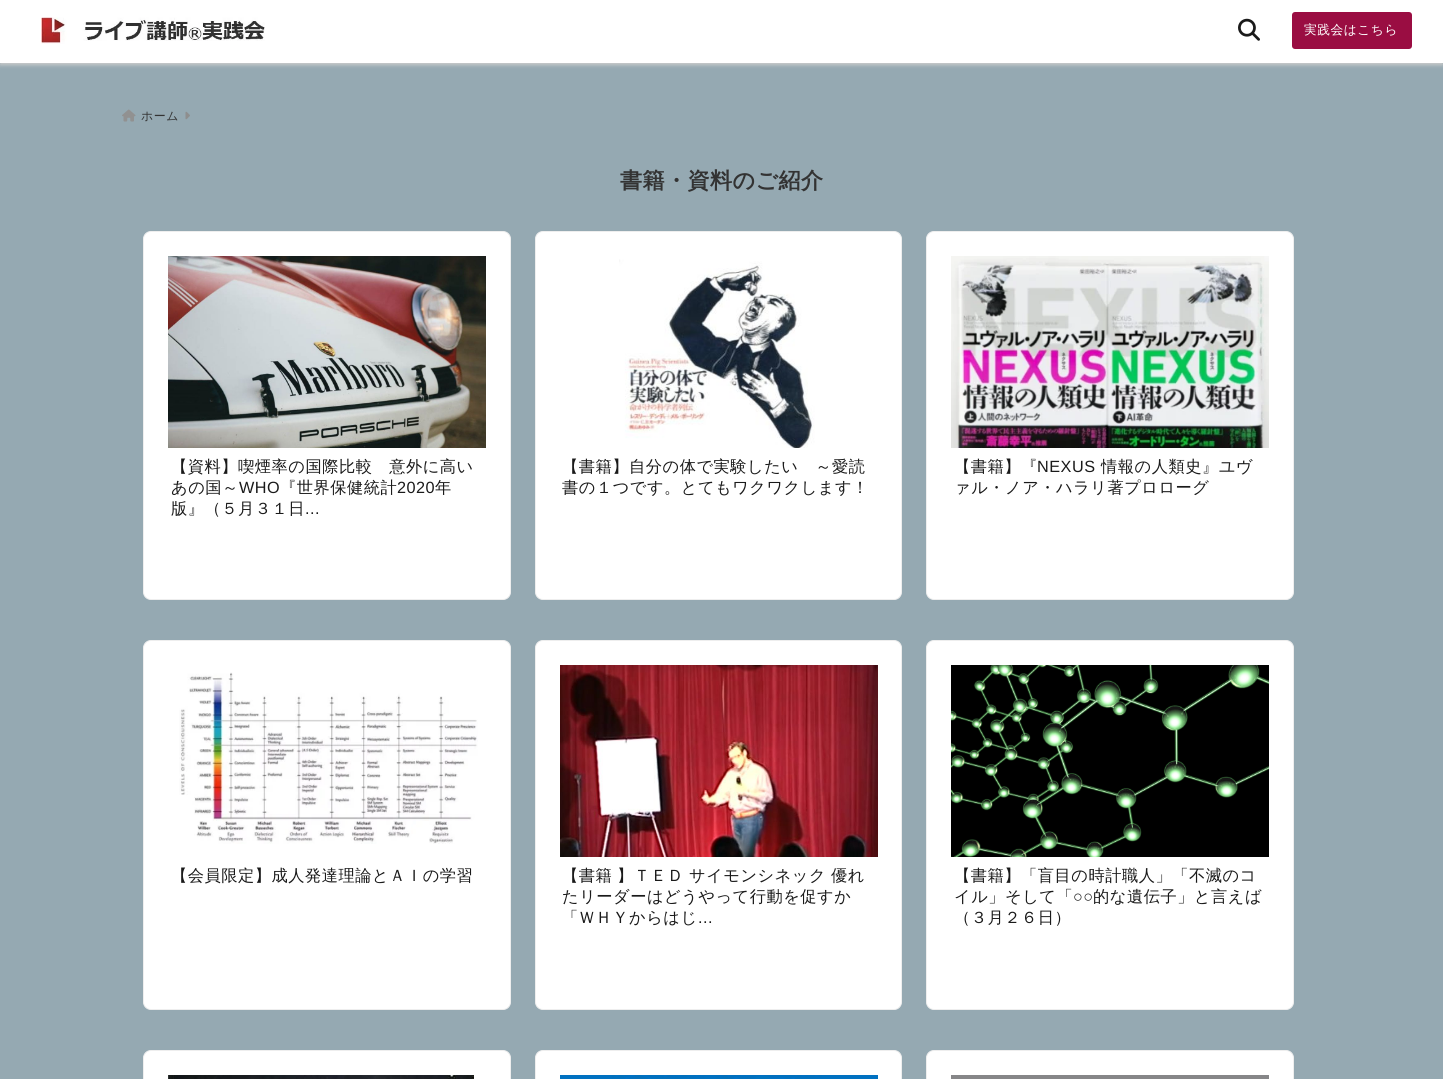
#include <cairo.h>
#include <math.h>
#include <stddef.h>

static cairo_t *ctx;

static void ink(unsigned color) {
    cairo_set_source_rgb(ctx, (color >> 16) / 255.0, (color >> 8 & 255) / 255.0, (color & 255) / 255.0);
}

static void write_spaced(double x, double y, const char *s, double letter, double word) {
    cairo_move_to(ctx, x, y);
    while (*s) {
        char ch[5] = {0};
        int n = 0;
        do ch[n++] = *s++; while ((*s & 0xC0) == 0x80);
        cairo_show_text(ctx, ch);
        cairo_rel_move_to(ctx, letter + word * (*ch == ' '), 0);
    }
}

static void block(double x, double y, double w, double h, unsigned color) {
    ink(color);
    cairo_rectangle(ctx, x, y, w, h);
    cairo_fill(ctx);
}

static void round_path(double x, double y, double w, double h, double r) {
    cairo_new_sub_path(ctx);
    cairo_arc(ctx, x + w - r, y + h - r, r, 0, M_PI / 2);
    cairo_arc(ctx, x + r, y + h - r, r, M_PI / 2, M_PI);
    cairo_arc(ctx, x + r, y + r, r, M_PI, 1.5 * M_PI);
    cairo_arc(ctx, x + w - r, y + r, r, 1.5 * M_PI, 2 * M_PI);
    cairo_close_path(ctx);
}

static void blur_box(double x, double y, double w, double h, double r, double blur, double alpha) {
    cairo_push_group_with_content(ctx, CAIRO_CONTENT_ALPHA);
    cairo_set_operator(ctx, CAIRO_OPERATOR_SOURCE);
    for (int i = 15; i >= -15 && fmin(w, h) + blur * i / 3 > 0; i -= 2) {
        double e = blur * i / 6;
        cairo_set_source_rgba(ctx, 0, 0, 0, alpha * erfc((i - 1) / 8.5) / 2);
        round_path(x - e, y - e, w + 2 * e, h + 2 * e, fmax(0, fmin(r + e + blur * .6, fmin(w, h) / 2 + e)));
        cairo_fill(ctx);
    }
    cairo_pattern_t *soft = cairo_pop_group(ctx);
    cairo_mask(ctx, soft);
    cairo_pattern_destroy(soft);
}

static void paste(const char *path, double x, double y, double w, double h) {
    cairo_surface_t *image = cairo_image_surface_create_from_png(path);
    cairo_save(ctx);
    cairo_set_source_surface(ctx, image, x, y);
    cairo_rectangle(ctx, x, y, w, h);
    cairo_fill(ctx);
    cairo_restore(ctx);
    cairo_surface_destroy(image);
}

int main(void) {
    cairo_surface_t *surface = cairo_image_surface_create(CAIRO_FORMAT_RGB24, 1443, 1079);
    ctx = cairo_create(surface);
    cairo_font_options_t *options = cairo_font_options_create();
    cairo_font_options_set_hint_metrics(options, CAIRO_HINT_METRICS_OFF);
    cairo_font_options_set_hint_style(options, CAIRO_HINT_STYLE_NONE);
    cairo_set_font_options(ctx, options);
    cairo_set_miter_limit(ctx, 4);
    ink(0x95a9b2);
    cairo_paint(ctx);
    ink(0xcccccc);
    blur_box(0, 2, 1443, 63, 0, 2, 1);
    block(0, 0, 1443, 63, 0xffffff);
    paste("pic1.png", 41, 17, 224, 27);
    paste("pic2.png", 1238, 18, 22, 23);
    ink(0x9a0d42);
    round_path(1292, 12, 120, 37, 3);
    cairo_fill(ctx);
    cairo_select_font_face(ctx, "WenQuanYi Zen Hei Medium", CAIRO_FONT_SLANT_NORMAL, CAIRO_FONT_WEIGHT_NORMAL);
    cairo_set_font_size(ctx, 12.75);
    ink(0xffffff);
    write_spaced(1304, 34, "実践会はこちら", 0.5, 0);
    paste("pic3.png", 122, 109, 14, 13);
    cairo_set_font_size(ctx, 12);
    ink(0x333333);
    write_spaced(141, 120, "ホーム", 0.5, 0);
    paste("pic4.png", 185, 111, 5, 9);
    cairo_select_font_face(ctx, "WenQuanYi Zen Hei", CAIRO_FONT_SLANT_NORMAL, CAIRO_FONT_WEIGHT_BOLD);
    cairo_set_font_size(ctx, 22);
    write_spaced(620, 188, "書籍・資料のご紹介", 0.5, 0);
    ink(0xffffff);
    round_path(143.5, 231.5, 367, 368, 7.5);
    cairo_fill_preserve(ctx);
    ink(0xeeeeee);
    cairo_set_line_width(ctx, 1);
    cairo_stroke(ctx);
    paste("pic5.png", 168, 256, 318, 192);
    cairo_select_font_face(ctx, "WenQuanYi Zen Hei Medium", CAIRO_FONT_SLANT_NORMAL, CAIRO_FONT_WEIGHT_NORMAL);
    cairo_set_font_size(ctx, 16.25);
    ink(0x1a1a1a);
    write_spaced(171, 472, "【資料】喫煙率の国際比較　意外に高い", 0.5, 0);
    write_spaced(171, 493, "あの国～", 0.5, 0);
    cairo_select_font_face(ctx, "Liberation Sans", CAIRO_FONT_SLANT_NORMAL, CAIRO_FONT_WEIGHT_NORMAL);
    write_spaced(239, 493, "WHO", 0.5, 0);
    cairo_select_font_face(ctx, "WenQuanYi Zen Hei Medium", CAIRO_FONT_SLANT_NORMAL, CAIRO_FONT_WEIGHT_NORMAL);
    write_spaced(280, 493, "『世界保健統計", 0.5, 0);
    cairo_select_font_face(ctx, "Liberation Sans", CAIRO_FONT_SLANT_NORMAL, CAIRO_FONT_WEIGHT_NORMAL);
    write_spaced(397, 493, "2020", 0.5, 0);
    cairo_select_font_face(ctx, "WenQuanYi Zen Hei Medium", CAIRO_FONT_SLANT_NORMAL, CAIRO_FONT_WEIGHT_NORMAL);
    write_spaced(435, 493, "年", 0.5, 0);
    write_spaced(171, 514, "版』（５月３１日", 0.5, 0);
    cairo_select_font_face(ctx, "Liberation Sans", CAIRO_FONT_SLANT_NORMAL, CAIRO_FONT_WEIGHT_NORMAL);
    write_spaced(305, 514, "...", 0.5, 0);
    ink(0xffffff);
    round_path(535.5, 231.5, 366, 368, 7.5);
    cairo_fill_preserve(ctx);
    ink(0xeeeeee);
    cairo_stroke(ctx);
    paste("pic6.png", 619, 259, 196, 189);
    cairo_select_font_face(ctx, "WenQuanYi Zen Hei Medium", CAIRO_FONT_SLANT_NORMAL, CAIRO_FONT_WEIGHT_NORMAL);
    ink(0x1a1a1a);
    write_spaced(562, 472, "【書籍】自分の体で実験したい　～愛読", 0.5, 0);
    write_spaced(562, 493, "書の１つです。とてもワクワクします！", 0.5, 0);
    ink(0xffffff);
    round_path(926.5, 231.5, 367, 368, 7.5);
    cairo_fill_preserve(ctx);
    ink(0xeeeeee);
    cairo_stroke(ctx);
    paste("pic7.png", 951, 256, 318, 192);
    ink(0x1a1a1a);
    write_spaced(954, 472, "【書籍】『", 0.5, 0);
    cairo_select_font_face(ctx, "Liberation Sans", CAIRO_FONT_SLANT_NORMAL, CAIRO_FONT_WEIGHT_NORMAL);
    write_spaced(1037, 472, "NEXUS", 0.5, 0);
    cairo_select_font_face(ctx, "WenQuanYi Zen Hei Medium", CAIRO_FONT_SLANT_NORMAL, CAIRO_FONT_WEIGHT_NORMAL);
    write_spaced(1101, 472, "情報の人類史』ユヴ", 0.5, 0);
    write_spaced(954, 493, "ァル・ノア・ハラリ著プロローグ", 0.5, 0);
    ink(0xffffff);
    round_path(143.5, 640.5, 367, 369, 7.5);
    cairo_fill_preserve(ctx);
    ink(0xeeeeee);
    cairo_stroke(ctx);
    paste("pic8.png", 179, 672, 299, 172);
    ink(0x1a1a1a);
    write_spaced(171, 881, "【会員限定】成人発達理論とＡＩの学習", 0.5, 0);
    ink(0xffffff);
    round_path(535.5, 640.5, 366, 369, 7.5);
    cairo_fill_preserve(ctx);
    ink(0xeeeeee);
    cairo_stroke(ctx);
    paste("pic9.png", 560, 665, 318, 192);
    ink(0x1a1a1a);
    write_spaced(562, 881, "【書籍 】ＴＥＤ サイモンシネック 優れ", 0.5, -0.5);
    write_spaced(562, 902, "たリーダーはどうやって行動を促すか", 0.5, 0);
    write_spaced(562, 923, "「ＷＨＹからはじ", 0.5, 0);
    cairo_select_font_face(ctx, "Liberation Sans", CAIRO_FONT_SLANT_NORMAL, CAIRO_FONT_WEIGHT_NORMAL);
    write_spaced(698, 923, "...", 0.5, 0);
    ink(0xffffff);
    round_path(926.5, 640.5, 367, 369, 7.5);
    cairo_fill_preserve(ctx);
    ink(0xeeeeee);
    cairo_stroke(ctx);
    paste("pic10.png", 951, 665, 318, 192);
    cairo_select_font_face(ctx, "WenQuanYi Zen Hei Medium", CAIRO_FONT_SLANT_NORMAL, CAIRO_FONT_WEIGHT_NORMAL);
    ink(0x1a1a1a);
    write_spaced(954, 881, "【書籍】「盲目の時計職人」「不滅のコ", 0.5, 0);
    write_spaced(954, 902, "イル」そして「", 0.5, 0);
    cairo_select_font_face(ctx, "Liberation Sans", CAIRO_FONT_SLANT_NORMAL, CAIRO_FONT_WEIGHT_NORMAL);
    write_spaced(1073, 902, "○○", 0.5, 0);
    cairo_select_font_face(ctx, "WenQuanYi Zen Hei Medium", CAIRO_FONT_SLANT_NORMAL, CAIRO_FONT_WEIGHT_NORMAL);
    write_spaced(1093, 902, "的な遺伝子」と言えば", 0.5, 0);
    write_spaced(954, 923, "（３月２６日）", 0.5, 0);
    ink(0xffffff);
    round_path(143.5, 1050.5, 367, 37, 7.5);
    cairo_fill_preserve(ctx);
    ink(0xeeeeee);
    cairo_stroke(ctx);
    paste("pic11.png", 168, 1075, 306, 4);
    ink(0xffffff);
    round_path(535.5, 1050.5, 366, 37, 7.5);
    cairo_fill_preserve(ctx);
    ink(0xeeeeee);
    cairo_stroke(ctx);
    paste("pic12.png", 560, 1075, 318, 4);
    ink(0xffffff);
    round_path(926.5, 1050.5, 367, 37, 7.5);
    cairo_fill_preserve(ctx);
    ink(0xeeeeee);
    cairo_stroke(ctx);
    block(951, 1075, 318, 4, 0x868688);
    cairo_surface_write_to_png(surface, "screenshot.png");
    cairo_font_options_destroy(options);
    cairo_destroy(ctx);
    cairo_surface_destroy(surface);
    return 0;
}
